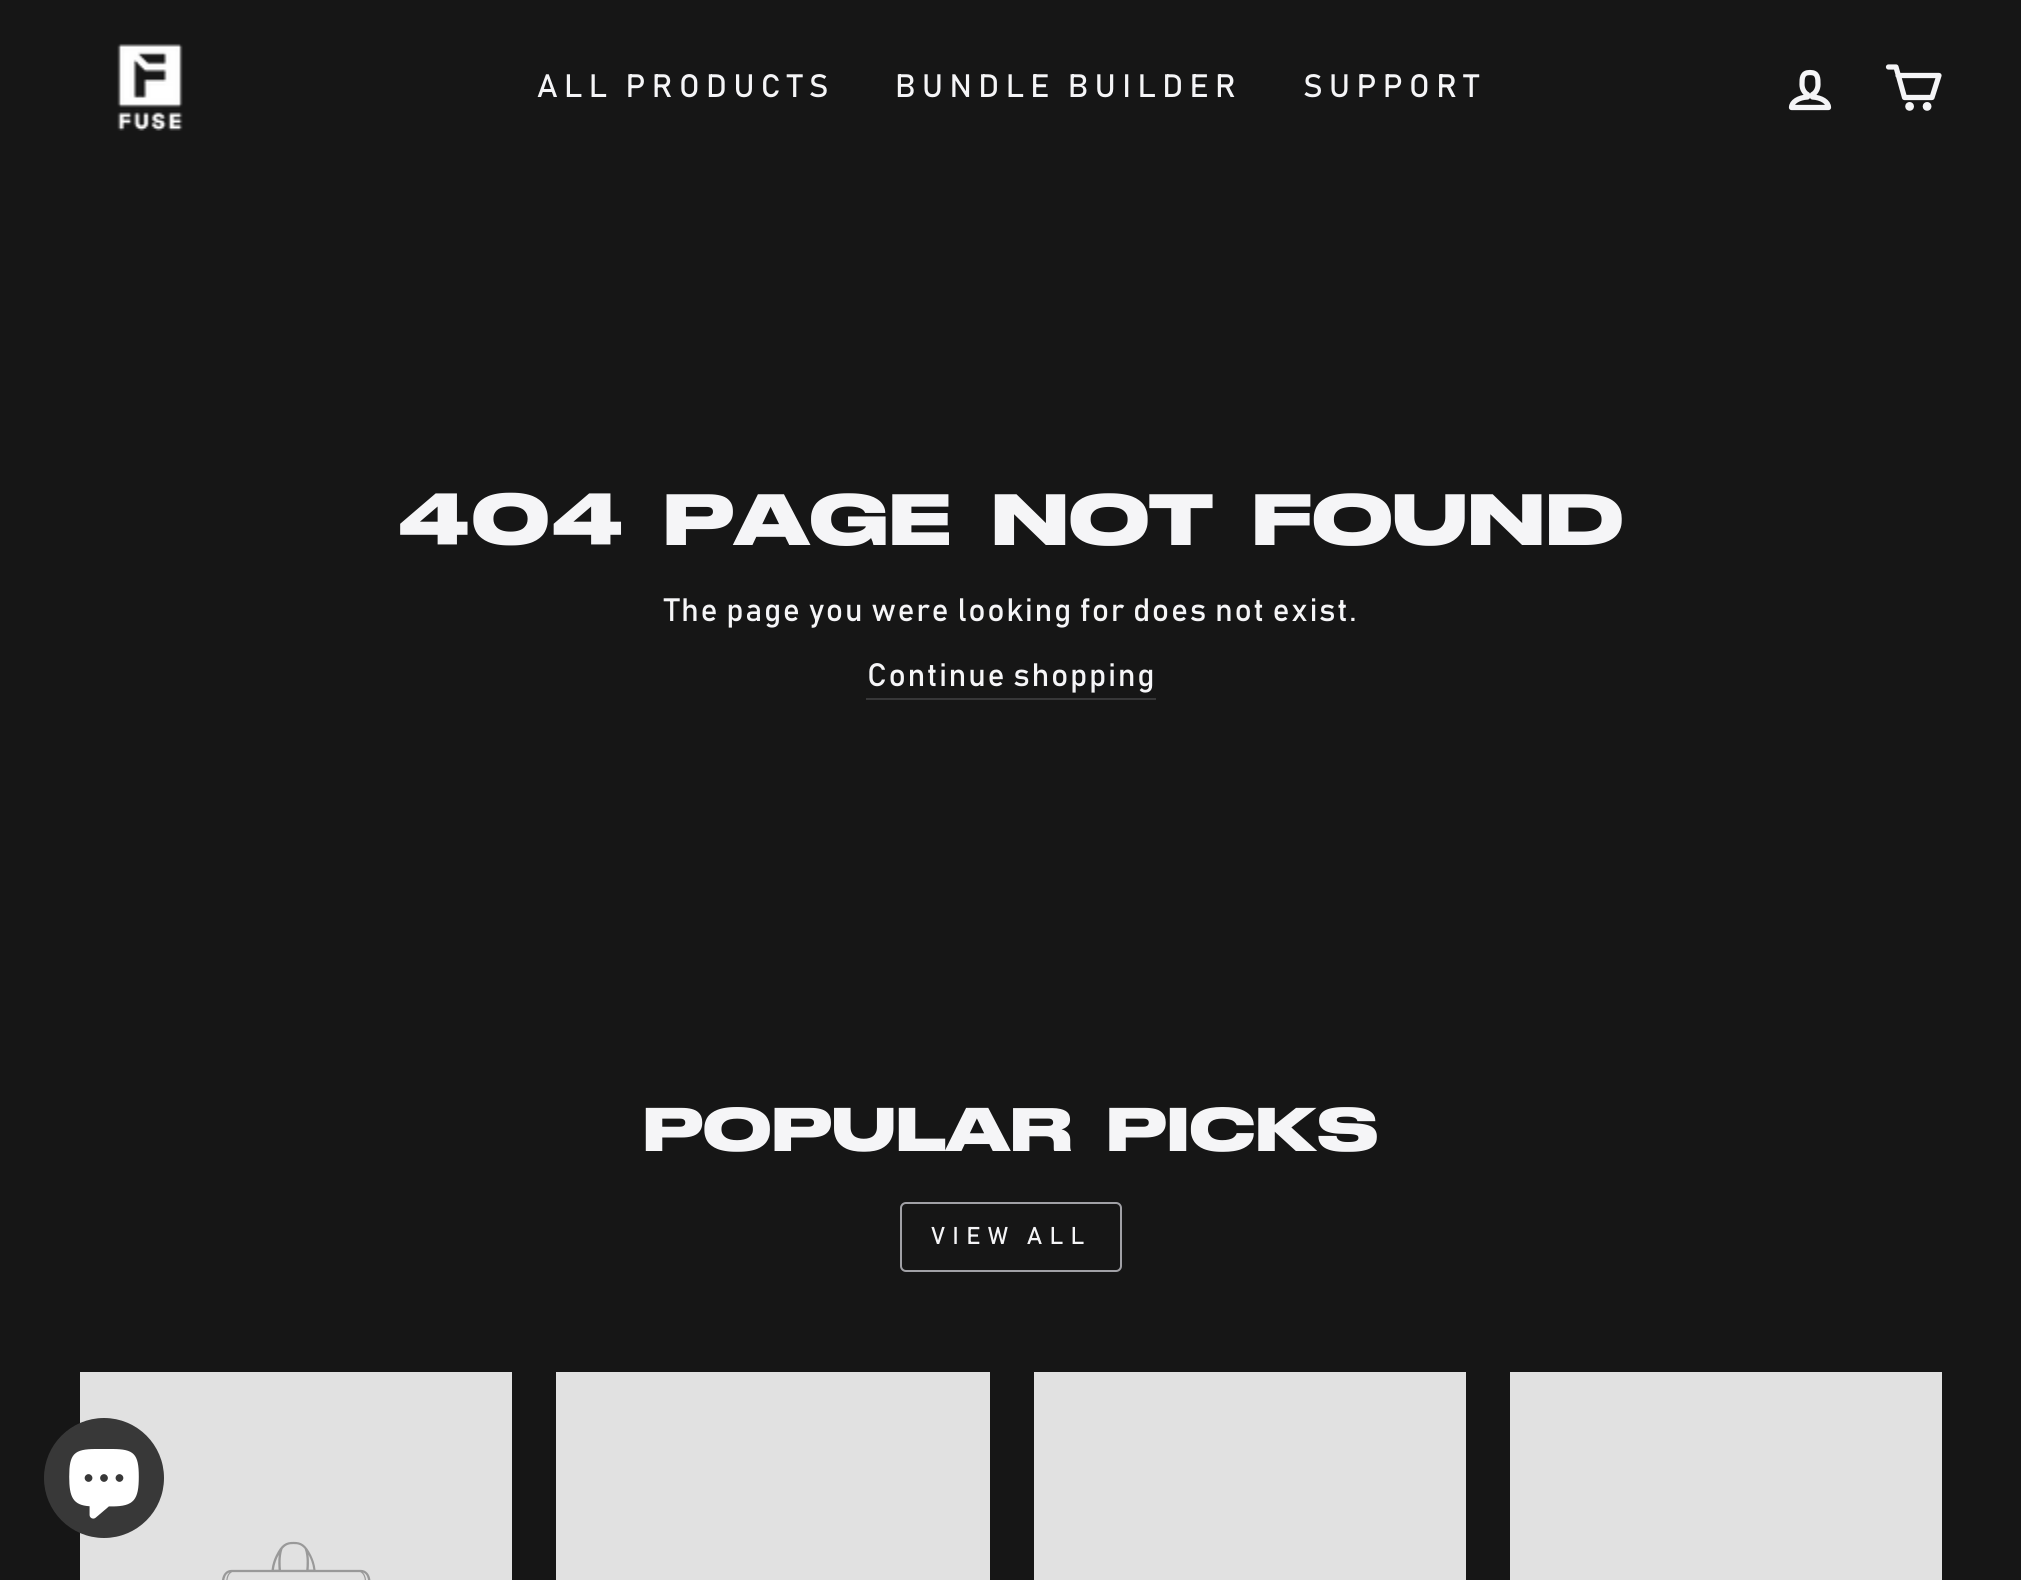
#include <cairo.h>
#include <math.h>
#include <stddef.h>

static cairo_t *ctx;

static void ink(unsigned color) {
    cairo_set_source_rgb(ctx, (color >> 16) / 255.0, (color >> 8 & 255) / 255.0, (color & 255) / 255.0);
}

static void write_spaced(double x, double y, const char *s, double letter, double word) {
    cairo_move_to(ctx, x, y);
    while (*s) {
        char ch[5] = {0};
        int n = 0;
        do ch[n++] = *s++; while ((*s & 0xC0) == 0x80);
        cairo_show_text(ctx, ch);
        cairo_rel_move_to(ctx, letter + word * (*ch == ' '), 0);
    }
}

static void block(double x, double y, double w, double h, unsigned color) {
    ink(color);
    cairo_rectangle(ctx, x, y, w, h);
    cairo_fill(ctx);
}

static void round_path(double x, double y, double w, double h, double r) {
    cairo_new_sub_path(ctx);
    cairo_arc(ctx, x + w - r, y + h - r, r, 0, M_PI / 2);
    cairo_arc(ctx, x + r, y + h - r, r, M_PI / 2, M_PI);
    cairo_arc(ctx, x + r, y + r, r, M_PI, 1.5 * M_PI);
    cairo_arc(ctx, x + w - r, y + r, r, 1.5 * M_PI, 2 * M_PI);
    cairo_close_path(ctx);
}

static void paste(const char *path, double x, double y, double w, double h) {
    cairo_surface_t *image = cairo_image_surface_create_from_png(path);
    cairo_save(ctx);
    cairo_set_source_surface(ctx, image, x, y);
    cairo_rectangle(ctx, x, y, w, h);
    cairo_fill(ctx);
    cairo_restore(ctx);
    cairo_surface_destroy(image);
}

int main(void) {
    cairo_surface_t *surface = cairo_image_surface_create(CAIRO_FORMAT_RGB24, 2021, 1580);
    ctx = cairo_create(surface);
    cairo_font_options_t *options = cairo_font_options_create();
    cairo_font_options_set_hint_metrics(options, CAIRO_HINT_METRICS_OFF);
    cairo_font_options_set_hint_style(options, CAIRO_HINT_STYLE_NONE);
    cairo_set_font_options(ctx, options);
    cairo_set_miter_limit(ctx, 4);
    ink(0x161616);
    cairo_paint(ctx);
    paste("pic1.png", 117, 43, 66, 88);
    cairo_select_font_face(ctx, "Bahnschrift", CAIRO_FONT_SLANT_NORMAL, CAIRO_FONT_WEIGHT_NORMAL);
    cairo_set_font_size(ctx, 32);
    ink(0xf5f5f7);
    write_spaced(537, 97, "ALL PRODUCTS", 6.4, 0);
    write_spaced(895, 97, "BUNDLE BUILDER", 6.4, 0);
    write_spaced(1303, 97, "SUPPORT", 6.4, 0);
    cairo_new_path(ctx);
    cairo_move_to(ctx, 1812.5, 97);
    cairo_line_to(ctx, 1812.5, 94.5);
    cairo_curve_to(ctx, 1815.5, 93, 1818, 89, 1818, 84.5);
    cairo_curve_to(ctx, 1818, 78, 1818, 72.5, 1810, 72.5);
    cairo_curve_to(ctx, 1802, 72.5, 1802, 78, 1802, 84.5);
    cairo_curve_to(ctx, 1802, 89, 1804.5, 93, 1807.5, 94.5);
    cairo_line_to(ctx, 1807.5, 97);
    cairo_curve_to(ctx, 1798.5, 97.5, 1791.5, 102, 1791.5, 107.5);
    cairo_line_to(ctx, 1828.5, 107.5);
    cairo_curve_to(ctx, 1828.5, 102, 1821.5, 97.5, 1812.5, 97);
    cairo_close_path(ctx);
    cairo_set_line_width(ctx, 5.2);
    cairo_set_line_cap(ctx, CAIRO_LINE_CAP_ROUND);
    cairo_set_line_join(ctx, CAIRO_LINE_JOIN_ROUND);
    cairo_stroke(ctx);
    cairo_new_path(ctx);
    cairo_move_to(ctx, 1898, 75.5);
    cairo_line_to(ctx, 1939, 75.5);
    cairo_line_to(ctx, 1932, 97.5);
    cairo_line_to(ctx, 1904.5, 97.5);
    cairo_line_to(ctx, 1896, 67);
    cairo_line_to(ctx, 1888.5, 67);
    cairo_stroke(ctx);
    cairo_arc(ctx, 1909.6, 106.4, 1.8, 0, 2 * M_PI);
    cairo_fill_preserve(ctx);
    cairo_set_line_cap(ctx, CAIRO_LINE_CAP_BUTT);
    cairo_set_line_join(ctx, CAIRO_LINE_JOIN_MITER);
    cairo_stroke(ctx);
    cairo_arc(ctx, 1927.1, 106.4, 1.8, 0, 2 * M_PI);
    cairo_fill_preserve(ctx);
    cairo_stroke(ctx);
    cairo_select_font_face(ctx, "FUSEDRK", CAIRO_FONT_SLANT_NORMAL, CAIRO_FONT_WEIGHT_BOLD);
    cairo_set_font_size(ctx, 70);
    write_spaced(398, 545, "404 PAGE NOT FOUND", 1, 0);
    cairo_select_font_face(ctx, "Bahnschrift", CAIRO_FONT_SLANT_NORMAL, CAIRO_FONT_WEIGHT_NORMAL);
    cairo_set_font_size(ctx, 32);
    write_spaced(664, 621, "The page you were looking for does not exist.", 1.6, 0);
    block(866, 698, 290, 2, 0x373738);
    ink(0xf5f5f7);
    write_spaced(867, 686, "Continue shopping", 1.6, 0);
    cairo_select_font_face(ctx, "FUSEDRK", CAIRO_FONT_SLANT_NORMAL, CAIRO_FONT_WEIGHT_BOLD);
    cairo_set_font_size(ctx, 59.5);
    write_spaced(643, 1151, "POPULAR PICKS", 0.9, 0);
    round_path(901, 1203, 220, 68, 5);
    ink(0xa1a1a6);
    cairo_set_line_width(ctx, 2);
    cairo_stroke(ctx);
    cairo_select_font_face(ctx, "Bahnschrift", CAIRO_FONT_SLANT_NORMAL, CAIRO_FONT_WEIGHT_NORMAL);
    cairo_set_font_size(ctx, 24);
    ink(0xf5f5f7);
    write_spaced(931, 1244, "VIEW ALL", 7.25, 0);
    block(80, 1372, 432, 208, 0xe1e1e1);
    paste("pic2.png", 222, 1541, 149, 39);
    block(556, 1372, 434, 208, 0xe1e1e1);
    block(1034, 1372, 432, 208, 0xe1e1e1);
    block(1510, 1372, 432, 208, 0xe1e1e1);
    ink(0x383838);
    cairo_arc(ctx, 104, 1478, 60, 0, 2 * M_PI);
    cairo_fill(ctx);
    paste("pic3.png", 69, 1449, 70, 70);
    cairo_surface_write_to_png(surface, "screenshot.png");
    cairo_font_options_destroy(options);
    cairo_destroy(ctx);
    cairo_surface_destroy(surface);
    return 0;
}
